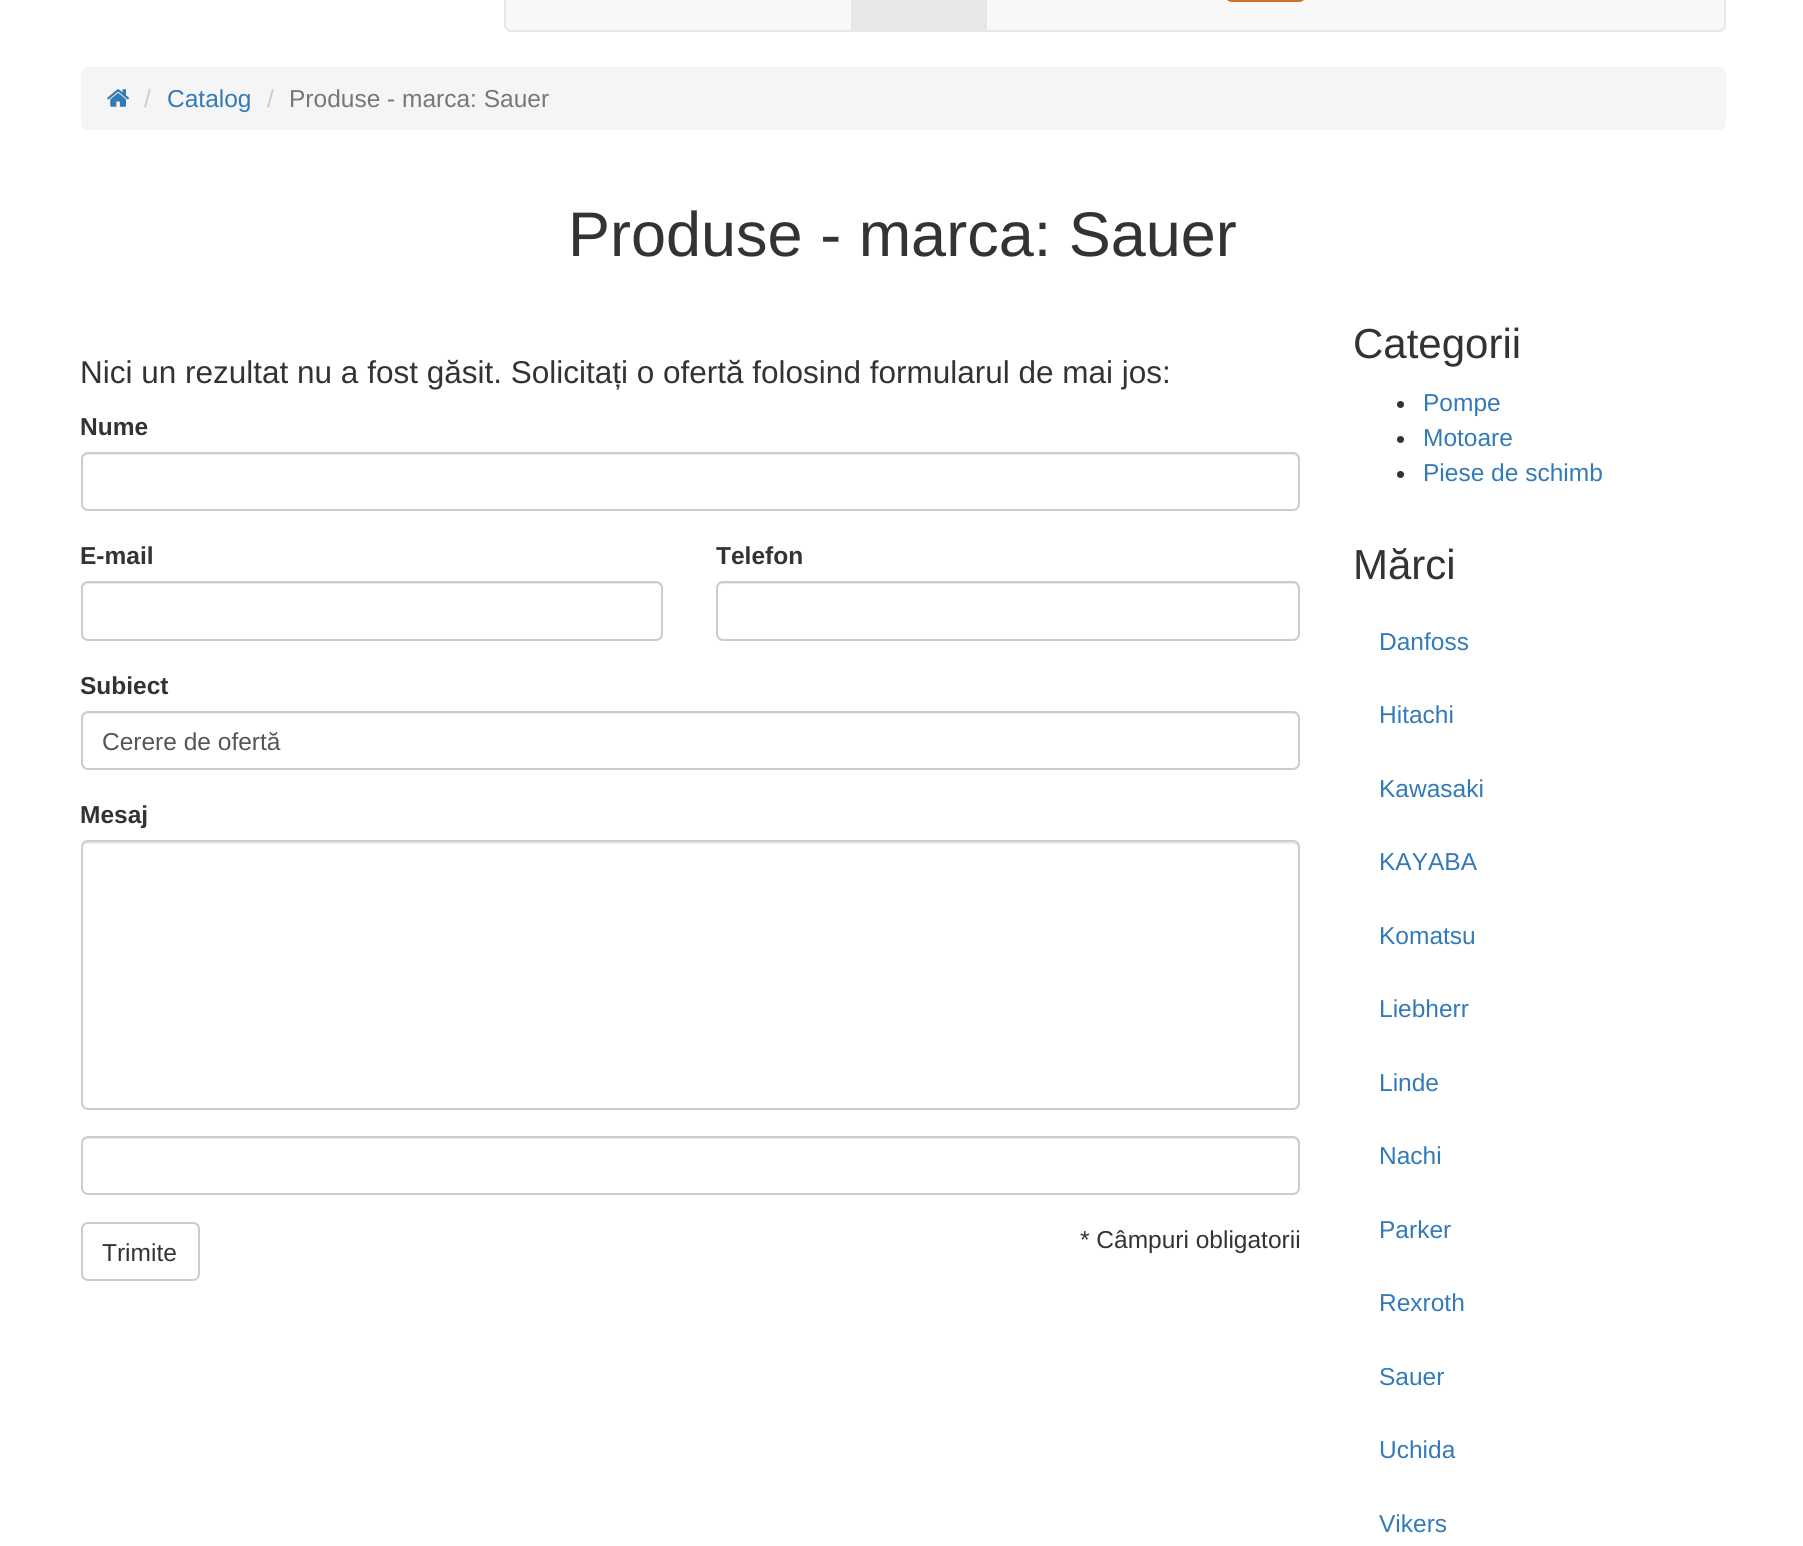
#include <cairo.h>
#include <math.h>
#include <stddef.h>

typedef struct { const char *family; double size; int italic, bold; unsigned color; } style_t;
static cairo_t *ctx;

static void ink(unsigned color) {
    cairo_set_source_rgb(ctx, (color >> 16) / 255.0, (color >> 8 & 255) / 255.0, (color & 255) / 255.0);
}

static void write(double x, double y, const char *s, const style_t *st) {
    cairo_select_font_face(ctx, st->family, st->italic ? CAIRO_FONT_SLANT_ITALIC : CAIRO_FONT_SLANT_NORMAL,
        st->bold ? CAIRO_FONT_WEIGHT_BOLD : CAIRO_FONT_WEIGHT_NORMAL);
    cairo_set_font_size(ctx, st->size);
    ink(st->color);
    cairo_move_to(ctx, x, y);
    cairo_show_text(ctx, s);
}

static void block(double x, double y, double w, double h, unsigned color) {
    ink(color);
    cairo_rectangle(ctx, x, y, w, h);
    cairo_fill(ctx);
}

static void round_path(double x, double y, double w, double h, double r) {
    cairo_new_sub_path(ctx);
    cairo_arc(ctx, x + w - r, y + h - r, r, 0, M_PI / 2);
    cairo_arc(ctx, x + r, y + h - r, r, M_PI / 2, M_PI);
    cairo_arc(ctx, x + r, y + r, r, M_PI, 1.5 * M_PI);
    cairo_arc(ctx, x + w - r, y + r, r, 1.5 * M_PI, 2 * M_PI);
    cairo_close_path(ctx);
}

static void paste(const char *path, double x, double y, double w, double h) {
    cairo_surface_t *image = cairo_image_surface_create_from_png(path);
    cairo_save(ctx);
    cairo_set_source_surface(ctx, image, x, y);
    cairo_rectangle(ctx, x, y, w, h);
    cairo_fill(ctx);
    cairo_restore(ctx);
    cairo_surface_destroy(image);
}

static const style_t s1 = {"Liberation Sans", 24.5, 0, 0, 0xcccccc};
static const style_t s2 = {"Liberation Sans", 24.5, 0, 0, 0x337ab7};
static const style_t s3 = {"Liberation Sans", 24.5, 0, 0, 0x777777};
static const style_t s4 = {"Liberation Sans", 63, 0, 0, 0x333333};
static const style_t s5 = {"Liberation Sans", 31.5, 0, 0, 0x333333};
static const style_t s6 = {"Liberation Sans", 24.5, 0, 1, 0x333333};
static const style_t s7 = {"Liberation Sans", 24.5, 0, 0, 0x555555};
static const style_t s8 = {"Liberation Sans", 24.5, 0, 0, 0x333333};
static const style_t s9 = {"Liberation Sans", 42, 0, 0, 0x333333};

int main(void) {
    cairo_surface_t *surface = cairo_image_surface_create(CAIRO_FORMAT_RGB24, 1803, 1546);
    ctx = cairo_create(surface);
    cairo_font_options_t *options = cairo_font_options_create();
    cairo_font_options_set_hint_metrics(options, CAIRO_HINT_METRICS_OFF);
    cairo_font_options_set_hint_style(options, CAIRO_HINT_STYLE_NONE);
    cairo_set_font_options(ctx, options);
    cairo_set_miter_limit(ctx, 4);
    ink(0xffffff);
    cairo_paint(ctx);
    ink(0xf8f8f8);
    round_path(505, -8, 1220, 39, 6);
    cairo_fill_preserve(ctx);
    ink(0xe7e7e7);
    cairo_stroke(ctx);
    round_path(1226, -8, 79, 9, 6);
    ink(0xcc7324);
    cairo_stroke(ctx);
    block(851, 0, 136, 30, 0xe7e7e7);
    ink(0xf5f5f5);
    round_path(81, 67, 1645, 63, 7);
    cairo_fill(ctx);
    paste("pic1.png", 107, 89, 23, 18);
    write(144, 107, "/", &s1);
    write(167, 107, "Catalog", &s2);
    write(267, 107, "/", &s1);
    write(289, 107, "Produse - marca: Sauer", &s3);
    write(568, 256, "Produse - marca: Sauer", &s4);
    write(80, 383, "Nici un rezultat nu a fost găsit. Solicitați o ofertă folosind formularul de mai jos:", &s5);
    write(80, 435, "Nume", &s6);
    ink(0xececec);
    cairo_new_path(ctx);
    cairo_move_to(ctx, 88, 455);
    cairo_line_to(ctx, 1293, 455);
    cairo_curve_to(ctx, 1296, 455, 1298, 457, 1298, 460);
    cairo_line_to(ctx, 1298, 507);
    cairo_curve_to(ctx, 1299, 506, 1299, 505, 1299, 504);
    cairo_line_to(ctx, 1299, 458);
    cairo_curve_to(ctx, 1299, 455, 1297, 453, 1294, 453);
    cairo_line_to(ctx, 87, 453);
    cairo_curve_to(ctx, 84, 453, 82, 455, 82, 458);
    cairo_line_to(ctx, 82, 460);
    cairo_curve_to(ctx, 82, 457, 85, 455, 88, 455);
    cairo_close_path(ctx);
    cairo_fill(ctx);
    round_path(82, 453, 1217, 57, 6);
    ink(0xcccccc);
    cairo_stroke(ctx);
    write(80, 564, "E-mail", &s6);
    ink(0xececec);
    cairo_new_path(ctx);
    cairo_move_to(ctx, 88, 584);
    cairo_line_to(ctx, 656, 584);
    cairo_curve_to(ctx, 659, 584, 662, 587, 662, 590);
    cairo_line_to(ctx, 662, 588);
    cairo_curve_to(ctx, 662, 585, 660, 583, 657, 583);
    cairo_line_to(ctx, 87, 583);
    cairo_curve_to(ctx, 84, 583, 82, 585, 82, 588);
    cairo_line_to(ctx, 82, 590);
    cairo_curve_to(ctx, 82, 587, 85, 584, 88, 584);
    cairo_close_path(ctx);
    cairo_fill(ctx);
    round_path(82, 582, 580, 58, 6);
    ink(0xcccccc);
    cairo_stroke(ctx);
    write(716, 564, "Telefon", &s6);
    ink(0xececec);
    cairo_new_path(ctx);
    cairo_move_to(ctx, 723, 584);
    cairo_line_to(ctx, 1293, 584);
    cairo_curve_to(ctx, 1296, 584, 1298, 587, 1298, 590);
    cairo_line_to(ctx, 1298, 635);
    cairo_line_to(ctx, 1297, 638);
    cairo_line_to(ctx, 1299, 635);
    cairo_line_to(ctx, 1299, 587);
    cairo_curve_to(ctx, 1299, 586, 1298, 585, 1297, 584);
    cairo_line_to(ctx, 1294, 583);
    cairo_line_to(ctx, 723, 583);
    cairo_curve_to(ctx, 719, 583, 718, 587, 718, 590);
    cairo_curve_to(ctx, 718, 587, 720, 584, 723, 584);
    cairo_close_path(ctx);
    cairo_fill(ctx);
    round_path(717, 582, 582, 58, 6);
    ink(0xcccccc);
    cairo_stroke(ctx);
    write(80, 694, "Subiect", &s6);
    ink(0xececec);
    cairo_new_path(ctx);
    cairo_move_to(ctx, 88, 714);
    cairo_line_to(ctx, 1293, 714);
    cairo_curve_to(ctx, 1296, 714, 1298, 716, 1298, 719);
    cairo_line_to(ctx, 1298, 766);
    cairo_curve_to(ctx, 1299, 765, 1299, 764, 1299, 763);
    cairo_line_to(ctx, 1299, 717);
    cairo_curve_to(ctx, 1299, 714, 1297, 712, 1294, 712);
    cairo_line_to(ctx, 87, 712);
    cairo_curve_to(ctx, 84, 712, 82, 714, 82, 717);
    cairo_line_to(ctx, 82, 719);
    cairo_curve_to(ctx, 82, 716, 85, 714, 88, 714);
    cairo_close_path(ctx);
    cairo_fill(ctx);
    round_path(82, 712, 1217, 57, 6);
    ink(0xcccccc);
    cairo_stroke(ctx);
    write(102, 750, "Cerere de ofertă", &s7);
    write(80, 823, "Mesaj", &s6);
    ink(0xececec);
    cairo_new_path(ctx);
    cairo_move_to(ctx, 88, 844);
    cairo_line_to(ctx, 1293, 844);
    cairo_curve_to(ctx, 1296, 844, 1298, 846, 1298, 849);
    cairo_line_to(ctx, 1298, 1104);
    cairo_line_to(ctx, 1298, 1107);
    cairo_curve_to(ctx, 1298, 1106, 1299, 1104, 1299, 1103);
    cairo_line_to(ctx, 1299, 847);
    cairo_curve_to(ctx, 1299, 844, 1297, 842, 1294, 842);
    cairo_line_to(ctx, 87, 842);
    cairo_curve_to(ctx, 84, 842, 82, 844, 82, 847);
    cairo_line_to(ctx, 82, 849);
    cairo_curve_to(ctx, 82, 846, 85, 844, 88, 844);
    cairo_close_path(ctx);
    cairo_fill(ctx);
    round_path(82, 841, 1217, 268, 6);
    ink(0xcccccc);
    cairo_stroke(ctx);
    ink(0xececec);
    cairo_new_path(ctx);
    cairo_move_to(ctx, 88, 1139);
    cairo_line_to(ctx, 1293, 1139);
    cairo_curve_to(ctx, 1296, 1139, 1298, 1142, 1298, 1144);
    cairo_line_to(ctx, 1298, 1190);
    cairo_line_to(ctx, 1297, 1193);
    cairo_curve_to(ctx, 1298, 1192, 1299, 1190, 1299, 1189);
    cairo_line_to(ctx, 1299, 1143);
    cairo_curve_to(ctx, 1299, 1140, 1297, 1138, 1294, 1138);
    cairo_line_to(ctx, 87, 1138);
    cairo_curve_to(ctx, 84, 1138, 82, 1140, 82, 1143);
    cairo_line_to(ctx, 82, 1144);
    cairo_curve_to(ctx, 82, 1142, 85, 1139, 88, 1139);
    cairo_close_path(ctx);
    cairo_fill(ctx);
    round_path(82, 1137, 1217, 57, 6);
    ink(0xcccccc);
    cairo_stroke(ctx);
    round_path(82, 1223, 117, 57, 6);
    cairo_stroke(ctx);
    write(102, 1261, "Trimite", &s8);
    write(1080, 1248, "* Câmpuri obligatorii", &s8);
    write(1353, 358, "Categorii", &s9);
    cairo_new_path(ctx);
    cairo_arc(ctx, 1400.5, 404.5, 3.5, 0, 2 * M_PI);
    cairo_fill(ctx);
    write(1423, 411, "Pompe", &s2);
    ink(0x333333);
    cairo_new_path(ctx);
    cairo_arc(ctx, 1400.5, 439.5, 3.5, 0, 2 * M_PI);
    cairo_fill(ctx);
    write(1423, 446, "Motoare", &s2);
    ink(0x333333);
    cairo_new_path(ctx);
    cairo_arc(ctx, 1400.5, 474.5, 3.5, 0, 2 * M_PI);
    cairo_fill(ctx);
    write(1423, 481, "Piese de schimb", &s2);
    write(1353, 579, "Mărci", &s9);
    write(1379, 650, "Danfoss", &s2);
    write(1379, 723, "Hitachi", &s2);
    write(1379, 797, "Kawasaki", &s2);
    write(1379, 870, "KAYABA", &s2);
    write(1379, 944, "Komatsu", &s2);
    write(1379, 1017, "Liebherr", &s2);
    write(1379, 1091, "Linde", &s2);
    write(1379, 1164, "Nachi", &s2);
    write(1379, 1238, "Parker", &s2);
    write(1379, 1311, "Rexroth", &s2);
    write(1379, 1385, "Sauer", &s2);
    write(1379, 1458, "Uchida", &s2);
    write(1379, 1532, "Vikers", &s2);
    cairo_surface_write_to_png(surface, "screenshot.png");
    cairo_font_options_destroy(options);
    cairo_destroy(ctx);
    cairo_surface_destroy(surface);
    return 0;
}
